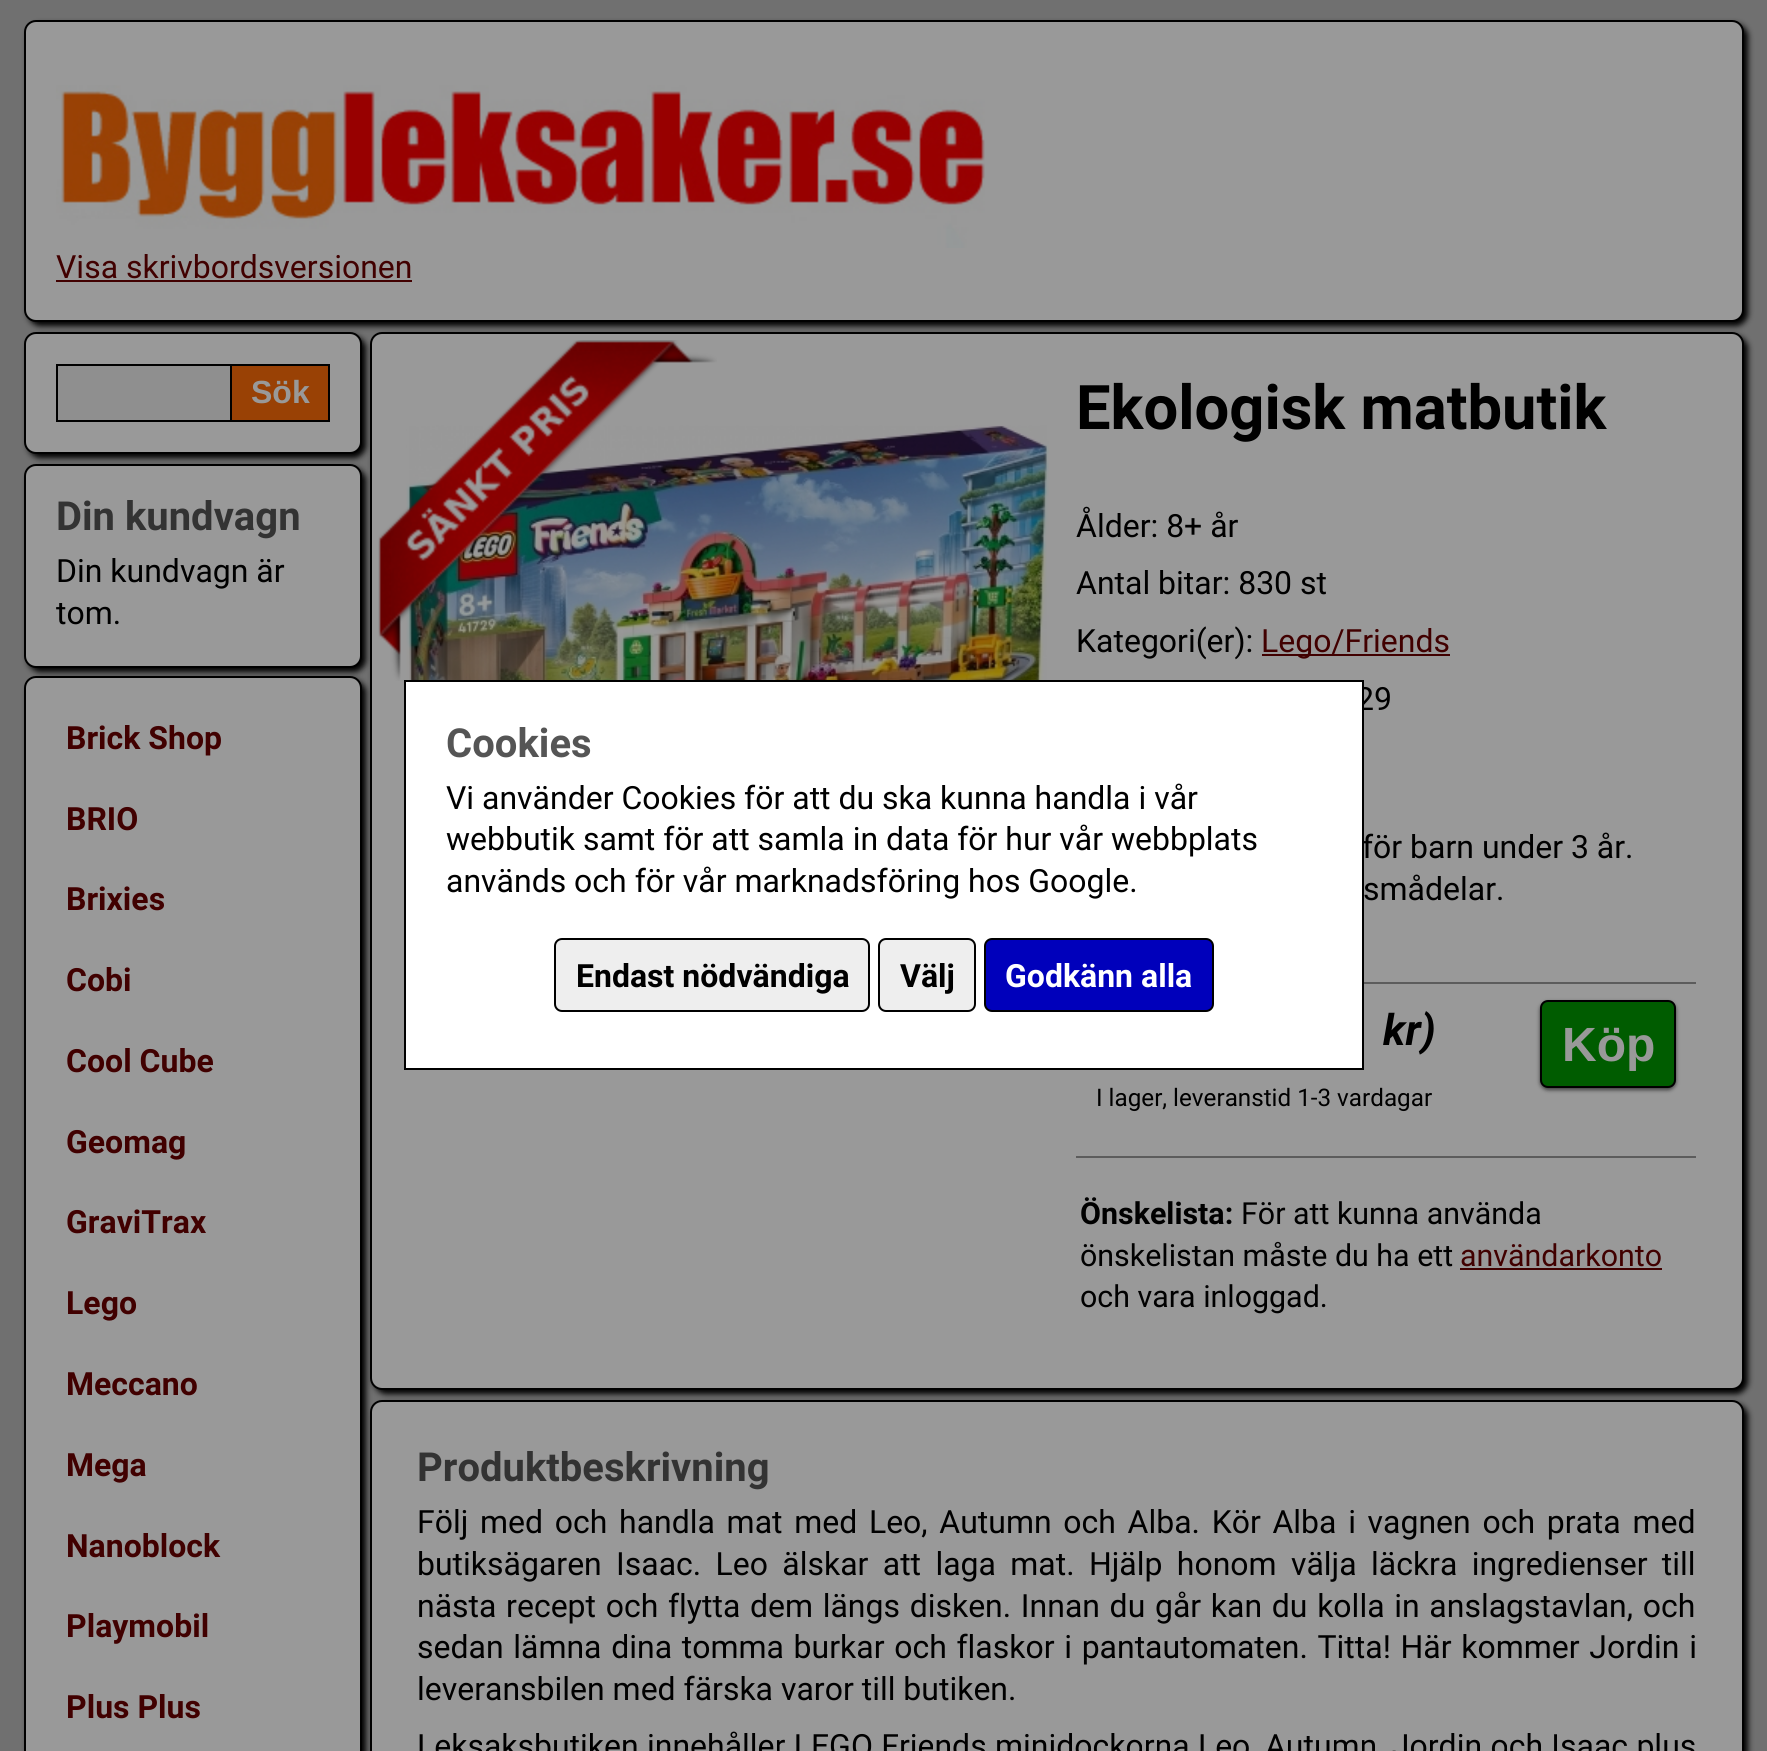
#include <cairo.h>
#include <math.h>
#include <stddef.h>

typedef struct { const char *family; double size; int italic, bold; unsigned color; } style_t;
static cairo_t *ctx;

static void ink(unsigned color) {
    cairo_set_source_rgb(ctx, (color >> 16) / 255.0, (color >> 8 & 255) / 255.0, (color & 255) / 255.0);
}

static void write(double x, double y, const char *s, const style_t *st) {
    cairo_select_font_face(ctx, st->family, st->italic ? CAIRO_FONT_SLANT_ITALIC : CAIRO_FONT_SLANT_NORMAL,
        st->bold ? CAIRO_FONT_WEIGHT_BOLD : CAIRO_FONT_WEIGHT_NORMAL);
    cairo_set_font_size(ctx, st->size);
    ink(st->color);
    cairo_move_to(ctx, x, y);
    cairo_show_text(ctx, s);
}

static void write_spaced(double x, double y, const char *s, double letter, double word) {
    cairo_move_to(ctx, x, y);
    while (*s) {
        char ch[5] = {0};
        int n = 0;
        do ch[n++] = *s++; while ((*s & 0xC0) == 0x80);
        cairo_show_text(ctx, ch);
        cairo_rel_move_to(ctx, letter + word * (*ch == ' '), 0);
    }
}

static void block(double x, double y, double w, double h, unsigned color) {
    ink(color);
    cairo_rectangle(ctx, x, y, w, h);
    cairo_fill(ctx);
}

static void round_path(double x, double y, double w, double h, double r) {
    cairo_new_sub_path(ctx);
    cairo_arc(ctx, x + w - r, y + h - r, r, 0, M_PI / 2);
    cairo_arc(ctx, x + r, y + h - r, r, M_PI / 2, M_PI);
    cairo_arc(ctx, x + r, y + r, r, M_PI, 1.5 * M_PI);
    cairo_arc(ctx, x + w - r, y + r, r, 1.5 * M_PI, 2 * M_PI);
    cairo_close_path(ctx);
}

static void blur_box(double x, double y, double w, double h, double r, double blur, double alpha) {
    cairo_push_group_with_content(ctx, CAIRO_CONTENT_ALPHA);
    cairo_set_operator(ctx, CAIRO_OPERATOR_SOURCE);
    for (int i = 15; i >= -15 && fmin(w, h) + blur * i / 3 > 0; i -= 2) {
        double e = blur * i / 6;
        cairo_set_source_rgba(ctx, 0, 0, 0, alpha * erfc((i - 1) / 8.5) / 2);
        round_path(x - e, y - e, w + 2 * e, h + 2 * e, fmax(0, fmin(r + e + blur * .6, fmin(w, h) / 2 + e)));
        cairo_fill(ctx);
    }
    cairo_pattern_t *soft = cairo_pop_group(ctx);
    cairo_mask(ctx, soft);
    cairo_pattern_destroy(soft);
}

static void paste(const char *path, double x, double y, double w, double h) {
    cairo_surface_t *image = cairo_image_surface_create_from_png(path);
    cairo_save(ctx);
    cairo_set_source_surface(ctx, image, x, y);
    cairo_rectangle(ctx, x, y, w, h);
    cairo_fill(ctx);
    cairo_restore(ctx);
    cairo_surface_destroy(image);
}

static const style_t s1 = {"Roboto", 32, 0, 0, 0x410000};
static const style_t s2 = {"Liberation Sans", 32, 0, 1, 0x999999};
static const style_t s3 = {"Roboto", 40, 0, 1, 0x333333};
static const style_t s4 = {"Roboto", 32, 0, 0, 0x000000};
static const style_t s5 = {"Roboto", 32, 0, 1, 0x410000};
static const style_t s6 = {"Roboto", 61.5, 0, 1, 0x000000};
static const style_t s7 = {"Roboto", 43, 1, 1, 0x000000};
static const style_t s8 = {"Roboto", 24.25, 0, 0, 0x000000};
static const style_t s9 = {"Liberation Sans", 48, 0, 1, 0x999999};
static const style_t s10 = {"Roboto", 30.4, 0, 1, 0x000000};
static const style_t s11 = {"Roboto", 30.4, 0, 0, 0x000000};
static const style_t s12 = {"Roboto", 30.4, 0, 0, 0x410000};
static const style_t s13 = {"Roboto", 40, 0, 1, 0x555555};
static const style_t s14 = {"Roboto", 32, 0, 1, 0x000000};
static const style_t s15 = {"Roboto", 32, 0, 1, 0xffffff};

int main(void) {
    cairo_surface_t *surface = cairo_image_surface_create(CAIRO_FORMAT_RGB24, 1767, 1751);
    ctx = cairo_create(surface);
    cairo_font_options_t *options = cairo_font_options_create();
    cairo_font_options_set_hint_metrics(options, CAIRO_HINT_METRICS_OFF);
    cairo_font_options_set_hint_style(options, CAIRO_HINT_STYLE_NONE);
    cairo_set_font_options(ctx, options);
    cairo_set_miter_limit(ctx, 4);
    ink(0x707070);
    cairo_paint(ctx);
    ink(0x000000);
    blur_box(28, 24, 1720, 302, 12, 3, 1);
    ink(0x999999);
    round_path(25, 21, 1718, 300, 11);
    cairo_fill_preserve(ctx);
    ink(0x000000);
    cairo_stroke(ctx);
    paste("pic1.png", 56, 85, 929, 163);
    write(56, 278, "Visa skrivbordsversionen", &s1);
    block(56, 280, 356, 2, 0x410000);
    ink(0x000000);
    blur_box(28, 336, 338, 122, 12, 3, 1);
    ink(0x999999);
    round_path(25, 333, 336, 120, 11);
    cairo_fill_preserve(ctx);
    ink(0x000000);
    cairo_stroke(ctx);
    ink(0x8f8f8f);
    cairo_rectangle(ctx, 57, 365, 174, 56);
    cairo_fill_preserve(ctx);
    ink(0x000000);
    cairo_stroke(ctx);
    ink(0x994105);
    cairo_rectangle(ctx, 231, 365, 98, 56);
    cairo_fill_preserve(ctx);
    ink(0x000000);
    cairo_stroke(ctx);
    write(251, 403, "Sök", &s2);
    ink(0x000000);
    blur_box(28, 468, 338, 204, 12, 3, 1);
    ink(0x999999);
    round_path(25, 465, 336, 202, 11);
    cairo_fill_preserve(ctx);
    ink(0x000000);
    cairo_stroke(ctx);
    write(56, 530, "Din kundvagn", &s3);
    write(56, 582, "Din kundvagn är", &s4);
    write(56, 624, "tom.", &s4);
    ink(0x000000);
    blur_box(28, 680, 338, 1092, 12, 3, 1);
    ink(0x999999);
    round_path(25, 677, 336, 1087, 11);
    cairo_fill_preserve(ctx);
    ink(0x000000);
    cairo_stroke(ctx);
    write(66, 749, "Brick Shop", &s5);
    write(66, 830, "BRIO", &s5);
    write(66, 910, "Brixies", &s5);
    write(66, 991, "Cobi", &s5);
    write(66, 1072, "Cool Cube", &s5);
    write(66, 1153, "Geomag", &s5);
    write(66, 1233, "GraviTrax", &s5);
    write(66, 1314, "Lego", &s5);
    write(66, 1395, "Meccano", &s5);
    write(66, 1476, "Mega", &s5);
    write(66, 1557, "Nanoblock", &s5);
    write(66, 1637, "Playmobil", &s5);
    write(66, 1718, "Plus Plus", &s5);
    ink(0x000000);
    blur_box(374, 336, 1374, 1058, 12, 3, 1);
    ink(0x999999);
    round_path(371, 333, 1372, 1056, 11);
    cairo_fill_preserve(ctx);
    ink(0x000000);
    cairo_stroke(ctx);
    paste("pic3.png", 406, 425, 643, 255);
    paste("pic2.png", 378, 340, 339, 341);
    write(1076, 429, "Ekologisk matbutik", &s6);
    write(1076, 537, "Ålder: 8+ år", &s4);
    write(1076, 594, "Antal bitar: 830 st", &s4);
    write(1076, 652, "Kategori(er):", &s4);
    block(1262, 654, 188, 2, 0x410000);
    write(1261, 652, "Lego/Friends", &s1);
    write(1356, 710, "29", &s4);
    write(1362, 858, "för barn under 3 år.", &s4);
    write(1363, 900, "smådelar.", &s4);
    block(1364, 982, 332, 2, 0x5c5c5c);
    block(1076, 1156, 620, 2, 0x5c5c5c);
    write(1383, 1045, "kr)", &s7);
    write(1096, 1106, "I lager, leveranstid 1-3 vardagar", &s8);
    ink(0x3d3d3d);
    blur_box(1540, 1002, 136, 88, 8, 2, 1);
    ink(0x005c00);
    round_path(1541, 1001, 134, 86, 7);
    cairo_fill_preserve(ctx);
    ink(0x000000);
    cairo_stroke(ctx);
    write(1562, 1061, "Köp", &s9);
    write(1080, 1224, "Önskelista:", &s10);
    write(1241, 1224, "För att kunna använda", &s11);
    write(1080, 1266, "önskelistan måste du ha ett", &s11);
    write(1460, 1266, "användarkonto", &s12);
    block(1460, 1268, 202, 2, 0x410000);
    write(1080, 1307, "och vara inloggad.", &s11);
    ink(0x000000);
    blur_box(374, 1404, 1374, 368, 12, 3, 1);
    ink(0x999999);
    round_path(371, 1401, 1372, 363, 11);
    cairo_fill_preserve(ctx);
    ink(0x000000);
    cairo_stroke(ctx);
    write(417, 1481, "Produktbeskrivning", &s3);
    cairo_select_font_face(ctx, "Roboto", CAIRO_FONT_SLANT_NORMAL, CAIRO_FONT_WEIGHT_NORMAL);
    cairo_set_font_size(ctx, 32);
    ink(0x000000);
    write_spaced(417, 1533, "Följ med och handla mat med Leo, Autumn och Alba. Kör Alba i vagnen och prata med", 0, 3.75);
    write_spaced(417, 1575, "butiksägaren Isaac. Leo älskar att laga mat. Hjälp honom välja läckra ingredienser till", 0, 6.4);
    write_spaced(417, 1617, "nästa recept och flytta dem längs disken. Innan du går kan du kolla in anslagstavlan, och", 0, 1.75);
    write_spaced(417, 1658, "sedan lämna dina tomma burkar och flaskor i pantautomaten. Titta! Här kommer Jordin i", 0, 1.75);
    write(417, 1700, "leveransbilen med färska varor till butiken.", &s4);
    write_spaced(417, 1757, "Leksaksbutiken innehåller LEGO Friends minidockorna Leo, Autumn, Jordin och Isaac plus", 0, 0.4);
    ink(0xffffff);
    cairo_rectangle(ctx, 405, 681, 958, 388);
    cairo_fill_preserve(ctx);
    ink(0x000000);
    cairo_stroke(ctx);
    write(446, 757, "Cookies", &s13);
    write(446, 809, "Vi använder Cookies för att du ska kunna handla i vår", &s4);
    write(446, 850, "webbutik samt för att samla in data för hur vår webbplats", &s4);
    write(446, 892, "används och för vår marknadsföring hos Google.", &s4);
    ink(0xeeeeee);
    round_path(555, 939, 314, 72, 7);
    cairo_fill_preserve(ctx);
    ink(0x000000);
    cairo_stroke(ctx);
    write(576, 987, "Endast nödvändiga", &s14);
    ink(0xeeeeee);
    round_path(879, 939, 96, 72, 7);
    cairo_fill_preserve(ctx);
    ink(0x000000);
    cairo_stroke(ctx);
    write(900, 987, "Välj", &s14);
    ink(0x0000bb);
    round_path(985, 939, 228, 72, 7);
    cairo_fill_preserve(ctx);
    ink(0x000000);
    cairo_stroke(ctx);
    write(1005, 987, "Godkänn alla", &s15);
    cairo_surface_write_to_png(surface, "screenshot.png");
    cairo_font_options_destroy(options);
    cairo_destroy(ctx);
    cairo_surface_destroy(surface);
    return 0;
}
